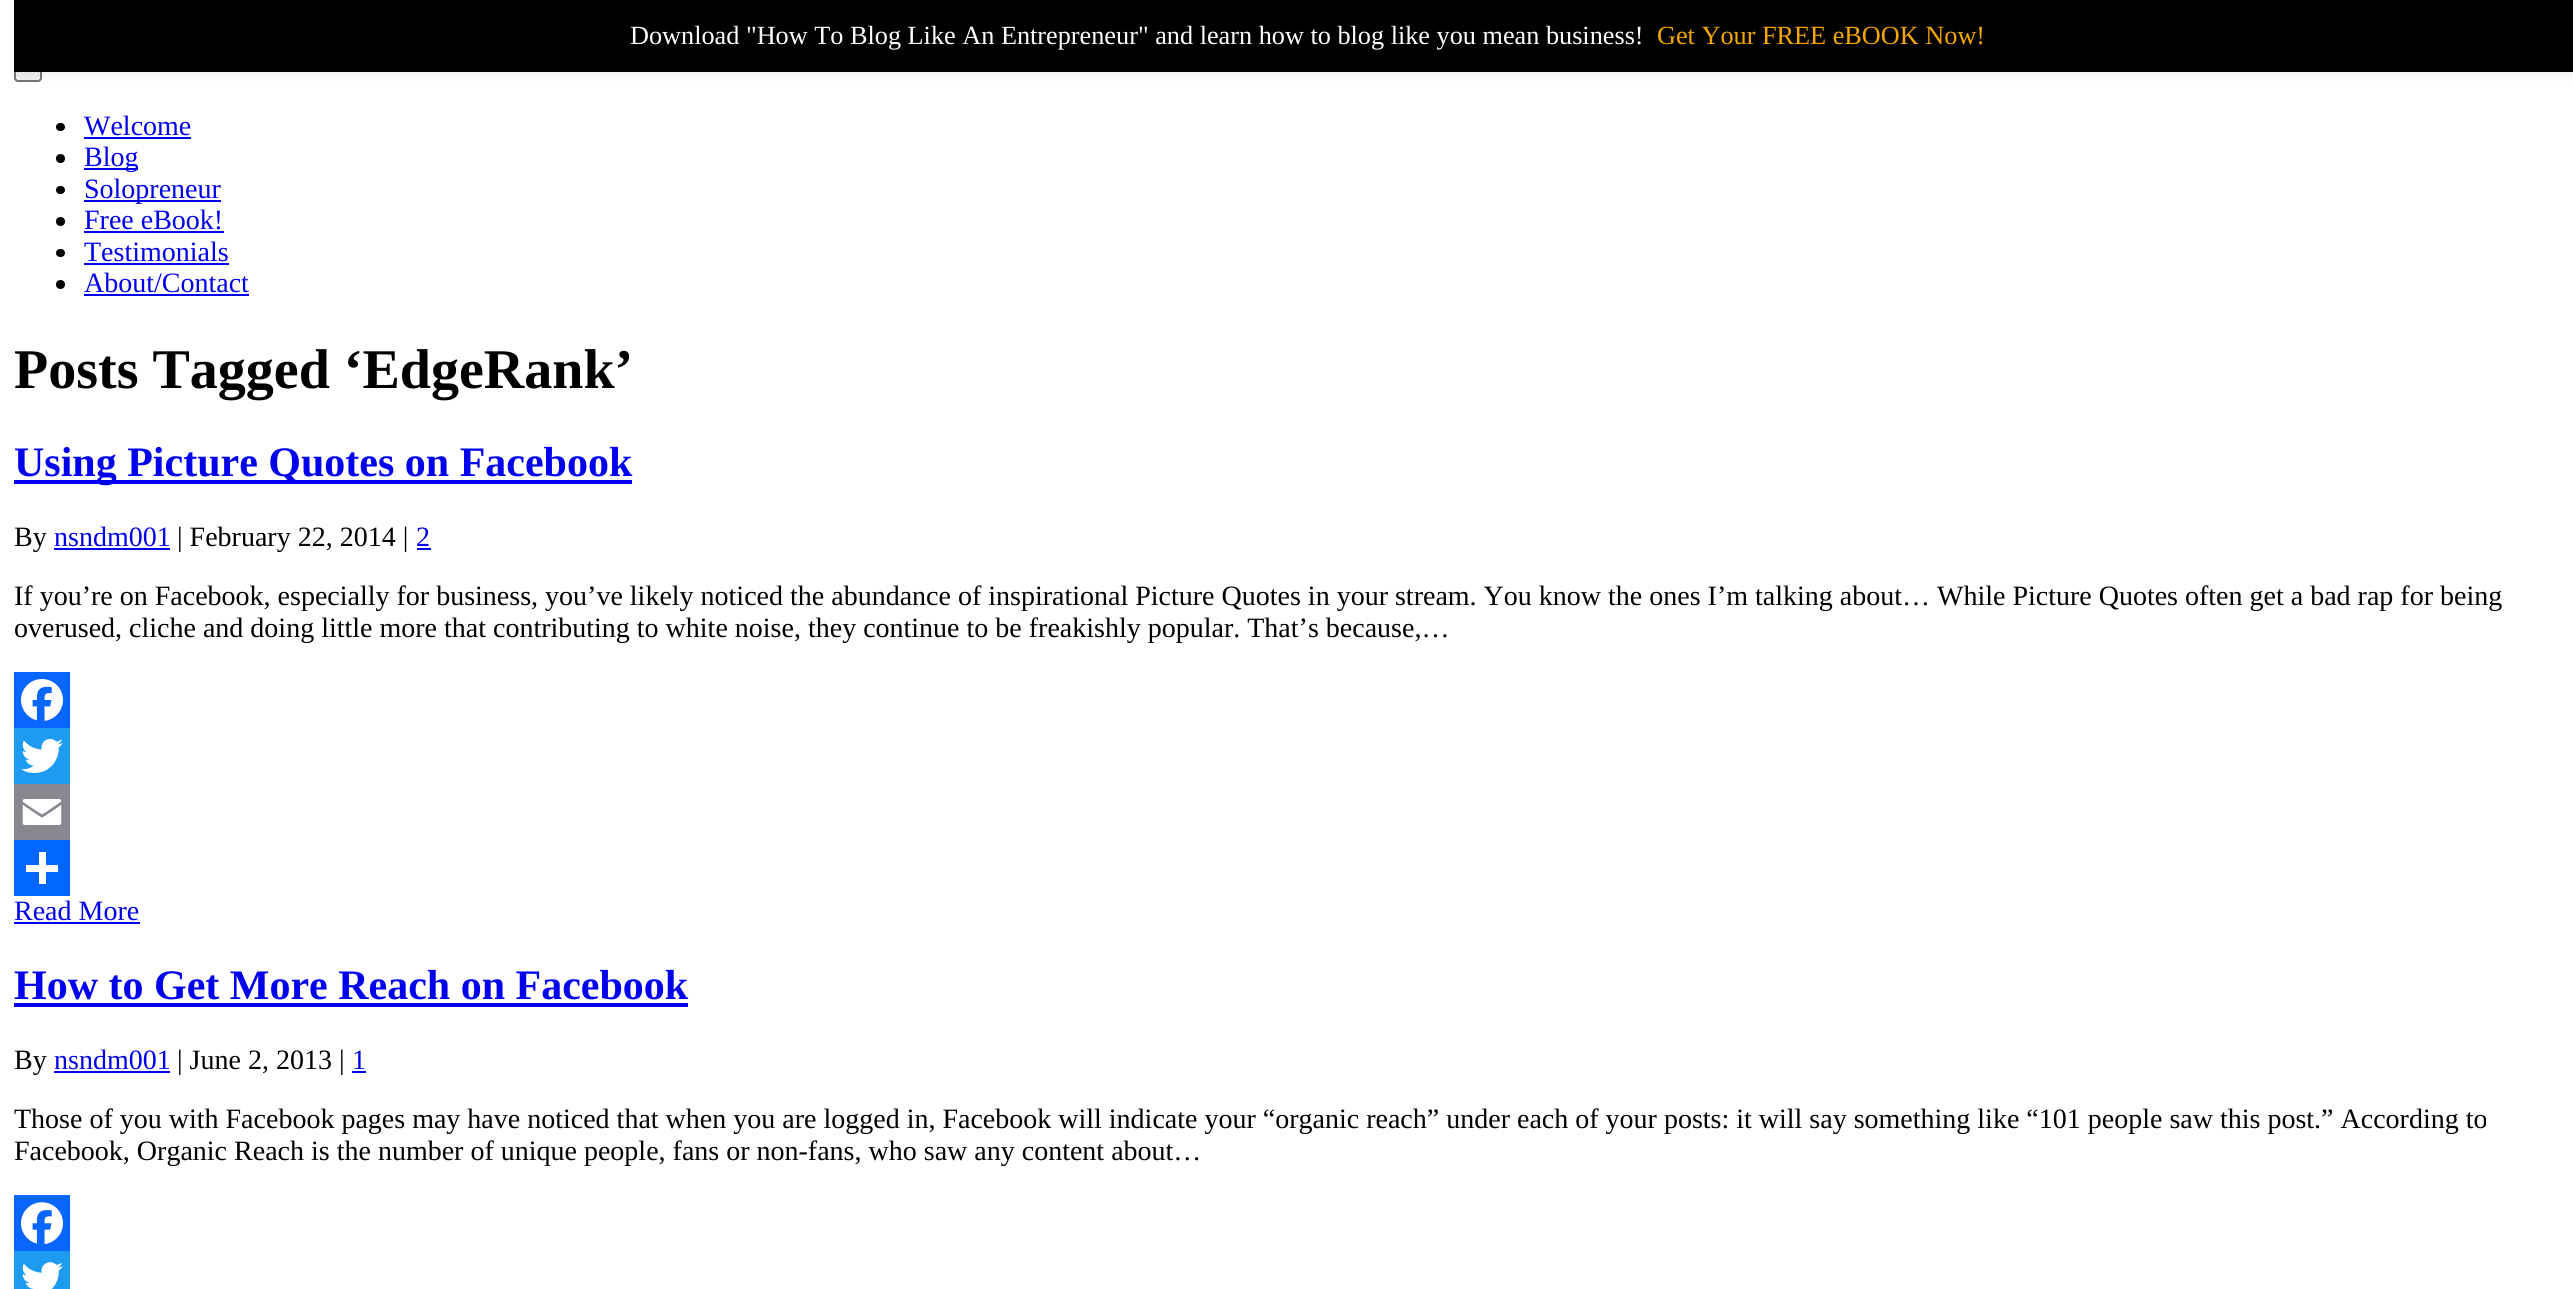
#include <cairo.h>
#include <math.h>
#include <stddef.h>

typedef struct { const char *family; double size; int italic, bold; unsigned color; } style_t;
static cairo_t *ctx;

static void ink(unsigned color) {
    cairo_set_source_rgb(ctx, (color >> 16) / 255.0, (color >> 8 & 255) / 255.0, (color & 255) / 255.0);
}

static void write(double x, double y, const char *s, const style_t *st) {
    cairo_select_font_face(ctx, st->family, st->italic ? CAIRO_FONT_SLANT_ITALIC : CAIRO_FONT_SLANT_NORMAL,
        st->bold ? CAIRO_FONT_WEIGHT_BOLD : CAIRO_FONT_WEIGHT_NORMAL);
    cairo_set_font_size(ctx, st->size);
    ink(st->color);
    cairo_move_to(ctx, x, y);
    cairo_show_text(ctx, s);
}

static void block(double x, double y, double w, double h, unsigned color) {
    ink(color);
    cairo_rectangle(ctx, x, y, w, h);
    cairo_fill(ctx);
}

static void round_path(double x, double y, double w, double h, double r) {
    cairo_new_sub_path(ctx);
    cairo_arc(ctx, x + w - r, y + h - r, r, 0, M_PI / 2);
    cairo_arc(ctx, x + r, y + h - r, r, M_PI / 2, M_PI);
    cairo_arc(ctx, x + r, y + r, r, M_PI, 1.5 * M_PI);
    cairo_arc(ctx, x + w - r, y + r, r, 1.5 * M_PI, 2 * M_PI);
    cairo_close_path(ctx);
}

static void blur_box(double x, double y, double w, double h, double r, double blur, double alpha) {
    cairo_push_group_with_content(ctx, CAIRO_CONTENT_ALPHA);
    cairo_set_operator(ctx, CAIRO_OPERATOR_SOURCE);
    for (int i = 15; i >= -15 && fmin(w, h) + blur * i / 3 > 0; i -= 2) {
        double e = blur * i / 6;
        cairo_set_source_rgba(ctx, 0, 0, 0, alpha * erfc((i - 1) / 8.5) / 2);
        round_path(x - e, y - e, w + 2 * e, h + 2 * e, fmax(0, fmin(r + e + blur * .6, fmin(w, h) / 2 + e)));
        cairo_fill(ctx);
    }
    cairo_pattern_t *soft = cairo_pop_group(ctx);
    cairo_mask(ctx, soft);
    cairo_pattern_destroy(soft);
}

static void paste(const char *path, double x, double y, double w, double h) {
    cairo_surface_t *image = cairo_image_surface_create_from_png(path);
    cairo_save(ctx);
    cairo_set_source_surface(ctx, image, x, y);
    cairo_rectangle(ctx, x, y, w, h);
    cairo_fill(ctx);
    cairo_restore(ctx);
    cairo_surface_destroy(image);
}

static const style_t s1 = {"Liberation Serif", 26.25, 0, 0, 0xffffff};
static const style_t s2 = {"Liberation Serif", 26.25, 0, 0, 0xf4a700};
static const style_t s3 = {"Liberation Serif", 28, 0, 0, 0x0000ee};
static const style_t s4 = {"Liberation Serif", 56, 0, 1, 0x000000};
static const style_t s5 = {"Liberation Serif", 42, 0, 1, 0x0000ee};
static const style_t s6 = {"Liberation Serif", 28, 0, 0, 0x000000};

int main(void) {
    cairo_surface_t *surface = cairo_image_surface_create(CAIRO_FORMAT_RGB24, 2573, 1289);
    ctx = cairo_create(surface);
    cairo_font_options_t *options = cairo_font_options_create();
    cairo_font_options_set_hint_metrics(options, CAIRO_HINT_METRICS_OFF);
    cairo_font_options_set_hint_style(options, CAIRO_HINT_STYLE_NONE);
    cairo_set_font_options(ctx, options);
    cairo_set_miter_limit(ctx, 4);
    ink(0xffffff);
    cairo_paint(ctx);
    ink(0xefefef);
    round_path(15, 47, 26, 34, 3);
    cairo_fill_preserve(ctx);
    ink(0x767676);
    cairo_stroke(ctx);
    ink(0x000000);
    blur_box(14, 5, 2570, 72, 0, 3.5, 0.05);
    block(14, 0, 2559, 72, 0x000000);
    write(630, 44, "Download \"How To Blog Like An Entrepreneur\" and learn how to blog like you mean business!", &s1);
    write(1657, 44, "Get Your FREE eBOOK Now!", &s2);
    ink(0x000000);
    round_path(56, 123, 9, 8, 4);
    cairo_fill(ctx);
    write(84, 135, "Welcome", &s3);
    block(84, 137, 107, 2, 0x0000ee);
    ink(0x000000);
    cairo_new_path(ctx);
    cairo_arc(ctx, 60.5, 158.5, 4.5, 0, 2 * M_PI);
    cairo_fill(ctx);
    block(84, 168, 54, 2, 0x0000ee);
    write(84, 166, "Blog", &s3);
    ink(0x000000);
    round_path(56, 186, 9, 8, 4);
    cairo_fill(ctx);
    block(84, 200, 137, 2, 0x0000ee);
    write(84, 198, "Solopreneur", &s3);
    ink(0x000000);
    cairo_new_path(ctx);
    cairo_arc(ctx, 60.5, 221.5, 4.5, 0, 2 * M_PI);
    cairo_fill(ctx);
    write(84, 229, "Free eBook!", &s3);
    block(84, 231, 140, 2, 0x0000ee);
    ink(0x000000);
    round_path(56, 249, 9, 8, 4);
    cairo_fill(ctx);
    write(84, 261, "Testimonials", &s3);
    block(84, 263, 145, 2, 0x0000ee);
    ink(0x000000);
    cairo_new_path(ctx);
    cairo_arc(ctx, 60.5, 284.5, 4.5, 0, 2 * M_PI);
    cairo_fill(ctx);
    write(84, 292, "About/Contact", &s3);
    block(84, 294, 165, 2, 0x0000ee);
    write(14, 388, "Posts Tagged ‘EdgeRank’", &s4);
    block(14, 480, 618, 4, 0x0000ee);
    write(14, 476, "Using Picture Quotes on Facebook", &s5);
    write(14, 546, "By", &s6);
    block(54, 548, 116, 2, 0x0000ee);
    write(54, 546, "nsndm001", &s3);
    write(177, 546, "| February 22, 2014 |", &s6);
    write(416, 546, "2", &s3);
    block(417, 548, 14, 2, 0x0000ee);
    write(14, 605, "If you’re on Facebook, especially for business, you’ve likely noticed the abundance of inspirational Picture Quotes in your stream. You know the ones I’m talking about… While Picture Quotes often get a bad rap for being", &s6);
    write(14, 637, "overused, cliche and doing little more that contributing to white noise, they continue to be freakishly popular. That’s because,…", &s6);
    block(14, 672, 56, 56, 0x0866ff);
    paste("pic1.png", 21, 679, 42, 42);
    block(14, 728, 56, 56, 0x1d9bf0);
    paste("pic2.png", 21, 738, 42, 36);
    block(14, 784, 56, 56, 0x888990);
    paste("pic3.png", 22, 799, 40, 26);
    block(14, 840, 56, 56, 0x0166ff);
    block(39, 852, 7, 32, 0xffffff);
    block(26, 865, 32, 7, 0xffffff);
    write(14, 920, "Read More", &s3);
    block(14, 922, 126, 2, 0x0000ee);
    write(14, 999, "How to Get More Reach on Facebook", &s5);
    block(14, 1003, 674, 4, 0x0000ee);
    write(14, 1069, "By", &s6);
    block(54, 1071, 116, 2, 0x0000ee);
    write(54, 1069, "nsndm001", &s3);
    write(177, 1069, "| June 2, 2013 |", &s6);
    write(352, 1069, "1", &s3);
    block(352, 1071, 14, 2, 0x0000ee);
    write(14, 1128, "Those of you with Facebook pages may have noticed that when you are logged in, Facebook will indicate your “organic reach” under each of your posts: it will say something like “101 people saw this post.” According to", &s6);
    write(14, 1160, "Facebook, Organic Reach is the number of unique people, fans or non-fans, who saw any content about…", &s6);
    block(14, 1195, 56, 56, 0x0866ff);
    paste("pic4.png", 21, 1202, 42, 43);
    block(14, 1251, 56, 38, 0x1d9bf0);
    paste("pic5.png", 22, 1262, 41, 27);
    cairo_surface_write_to_png(surface, "screenshot.png");
    cairo_font_options_destroy(options);
    cairo_destroy(ctx);
    cairo_surface_destroy(surface);
    return 0;
}
